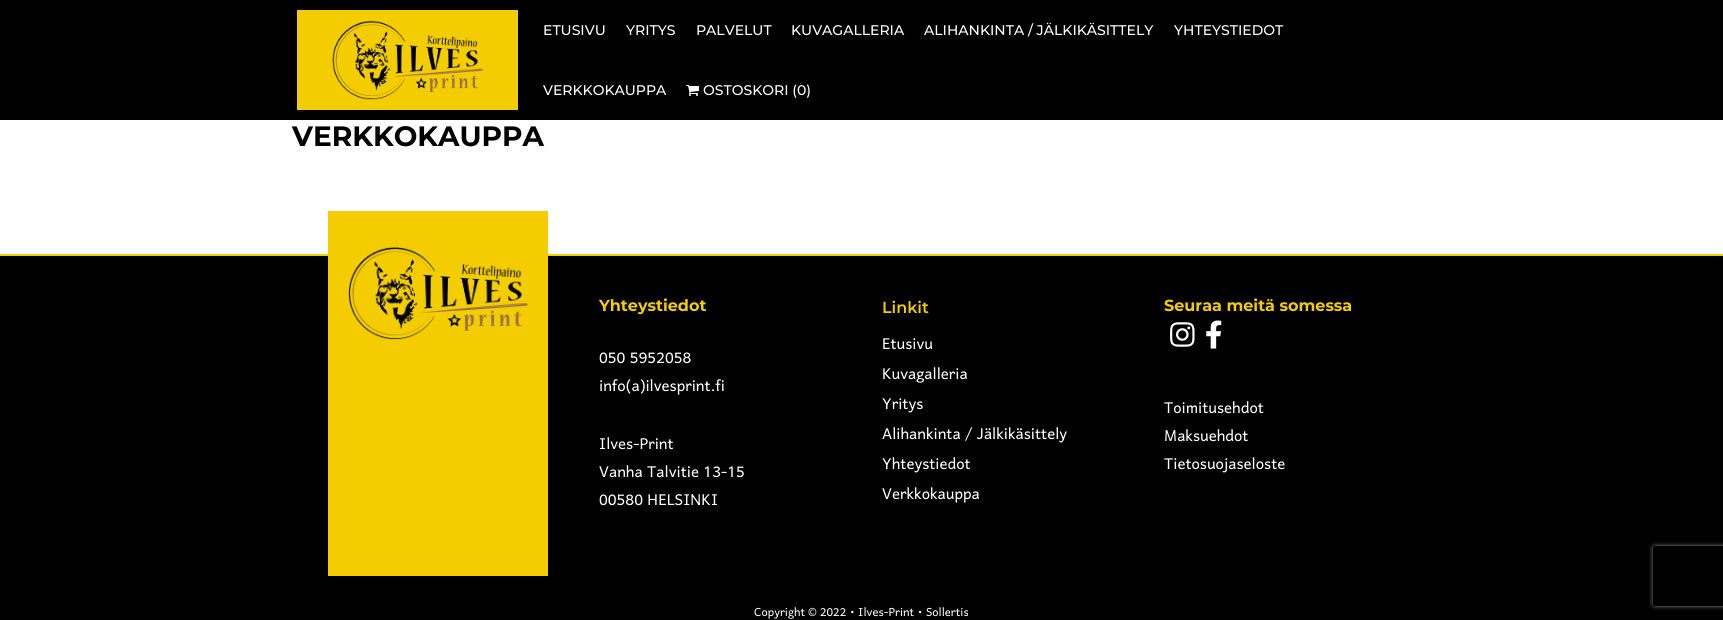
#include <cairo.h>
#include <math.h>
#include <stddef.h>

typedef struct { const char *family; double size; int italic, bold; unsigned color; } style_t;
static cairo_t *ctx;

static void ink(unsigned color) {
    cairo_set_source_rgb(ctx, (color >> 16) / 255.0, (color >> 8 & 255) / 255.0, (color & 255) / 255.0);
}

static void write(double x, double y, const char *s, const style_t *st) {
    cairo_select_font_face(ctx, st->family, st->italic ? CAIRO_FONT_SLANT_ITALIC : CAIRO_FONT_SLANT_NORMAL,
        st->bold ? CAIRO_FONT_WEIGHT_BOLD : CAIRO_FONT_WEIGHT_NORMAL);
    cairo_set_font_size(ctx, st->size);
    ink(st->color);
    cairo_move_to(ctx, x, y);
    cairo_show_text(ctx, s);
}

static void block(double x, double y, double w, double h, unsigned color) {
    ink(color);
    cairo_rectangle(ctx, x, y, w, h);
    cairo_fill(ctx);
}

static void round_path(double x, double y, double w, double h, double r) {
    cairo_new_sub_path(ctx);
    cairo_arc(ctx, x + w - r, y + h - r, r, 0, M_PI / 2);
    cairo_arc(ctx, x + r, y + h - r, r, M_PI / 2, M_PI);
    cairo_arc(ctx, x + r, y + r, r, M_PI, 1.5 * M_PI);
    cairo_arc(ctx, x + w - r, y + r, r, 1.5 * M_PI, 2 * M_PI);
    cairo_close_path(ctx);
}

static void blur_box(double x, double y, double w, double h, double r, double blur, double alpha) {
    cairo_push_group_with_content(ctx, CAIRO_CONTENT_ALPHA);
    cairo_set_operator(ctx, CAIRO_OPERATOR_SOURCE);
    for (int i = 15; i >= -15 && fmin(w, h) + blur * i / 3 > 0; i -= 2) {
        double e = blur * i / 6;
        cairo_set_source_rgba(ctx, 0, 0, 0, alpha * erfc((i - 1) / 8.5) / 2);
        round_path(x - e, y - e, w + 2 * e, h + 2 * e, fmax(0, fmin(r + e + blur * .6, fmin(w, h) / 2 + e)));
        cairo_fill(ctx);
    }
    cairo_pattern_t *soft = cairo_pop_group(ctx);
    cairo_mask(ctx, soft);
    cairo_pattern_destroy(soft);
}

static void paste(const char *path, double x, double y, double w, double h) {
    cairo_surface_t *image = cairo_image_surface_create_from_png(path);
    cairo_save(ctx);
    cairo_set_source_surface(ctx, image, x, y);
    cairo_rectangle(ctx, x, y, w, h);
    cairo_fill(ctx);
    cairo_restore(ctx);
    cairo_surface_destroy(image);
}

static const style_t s1 = {"Montserrat Medium", 14, 0, 0, 0xffffff};
static const style_t s2 = {"Montserrat", 28, 0, 1, 0x000000};
static const style_t s3 = {"Montserrat", 16, 0, 1, 0xf3cd00};
static const style_t s4 = {"Harmattan", 20, 0, 0, 0xffffff};
static const style_t s5 = {"Montserrat SemiBold", 16, 0, 0, 0xf3cd00};
static const style_t s6 = {"Harmattan", 15, 0, 0, 0xffffff};

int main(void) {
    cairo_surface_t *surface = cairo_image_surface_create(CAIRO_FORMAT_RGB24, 1723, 620);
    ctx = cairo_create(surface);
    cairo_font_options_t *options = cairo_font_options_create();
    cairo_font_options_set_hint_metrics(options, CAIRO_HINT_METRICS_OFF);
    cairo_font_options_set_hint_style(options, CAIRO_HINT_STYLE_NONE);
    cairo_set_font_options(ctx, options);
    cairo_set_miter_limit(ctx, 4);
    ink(0xffffff);
    cairo_paint(ctx);
    block(0, 0, 1723, 120, 0x000000);
    block(297, 10, 221, 100, 0xf3cd00);
    paste("pic1.png", 332, 20, 151, 80);
    write(543, 35, "ETUSIVU", &s1);
    write(626, 35, "YRITYS", &s1);
    write(696, 35, "PALVELUT", &s1);
    write(791, 35, "KUVAGALLERIA", &s1);
    write(924, 35, "ALIHANKINTA / JÄLKIKÄSITTELY", &s1);
    write(1174, 35, "YHTEYSTIEDOT", &s1);
    write(543, 95, "VERKKOKAUPPA", &s1);
    paste("pic2.png", 686, 85, 13, 11);
    write(703, 95, "OSTOSKORI (0)", &s1);
    write(292, 146, "VERKKOKAUPPA", &s2);
    block(0, 256, 1723, 364, 0x000000);
    block(0, 254, 1723, 2, 0xf3cd00);
    block(328, 211, 220, 365, 0xf3cd00);
    paste("pic3.png", 348, 247, 180, 93);
    write(599, 311, "Yhteystiedot", &s3);
    write(599, 363, "050 5952058", &s4);
    write(599, 391, "info(a)ilvesprint.fi", &s4);
    write(599, 449, "Ilves-Print", &s4);
    write(599, 477, "Vanha Talvitie 13-15", &s4);
    write(599, 505, "00580 HELSINKI", &s4);
    write(882, 313, "Linkit", &s5);
    write(882, 349, "Etusivu", &s4);
    write(882, 379, "Kuvagalleria", &s4);
    write(882, 409, "Yritys", &s4);
    write(882, 439, "Alihankinta / Jälkikäsittely", &s4);
    write(882, 469, "Yhteystiedot", &s4);
    write(882, 499, "Verkkokauppa", &s4);
    write(1164, 311, "Seuraa meitä somessa", &s3);
    paste("pic4.png", 1170, 322, 25, 25);
    paste("pic5.png", 1206, 320, 16, 29);
    write(1164, 413, "Toimitusehdot", &s4);
    write(1164, 441, "Maksuehdot", &s4);
    write(1164, 469, "Tietosuojaseloste", &s4);
    write(754, 616, "Copyright © 2022 • Ilves-Print • Sollertis", &s6);
    cairo_save(ctx);
    cairo_set_fill_rule(ctx, CAIRO_FILL_RULE_EVEN_ODD);
    cairo_new_path(ctx);
    cairo_move_to(ctx, 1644, 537);
    cairo_line_to(ctx, 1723, 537);
    cairo_line_to(ctx, 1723, 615);
    cairo_line_to(ctx, 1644, 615);
    cairo_close_path(ctx);
    cairo_move_to(ctx, 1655, 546);
    cairo_line_to(ctx, 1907, 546);
    cairo_curve_to(ctx, 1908, 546, 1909, 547, 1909, 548);
    cairo_line_to(ctx, 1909, 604);
    cairo_curve_to(ctx, 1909, 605, 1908, 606, 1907, 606);
    cairo_line_to(ctx, 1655, 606);
    cairo_curve_to(ctx, 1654, 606, 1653, 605, 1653, 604);
    cairo_line_to(ctx, 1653, 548);
    cairo_curve_to(ctx, 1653, 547, 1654, 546, 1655, 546);
    cairo_close_path(ctx);
    cairo_clip(ctx);
    ink(0x808080);
    blur_box(1653, 546, 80, 60, 2, 2.5, 1);
    cairo_restore(ctx);
    cairo_surface_write_to_png(surface, "screenshot.png");
    cairo_font_options_destroy(options);
    cairo_destroy(ctx);
    cairo_surface_destroy(surface);
    return 0;
}
